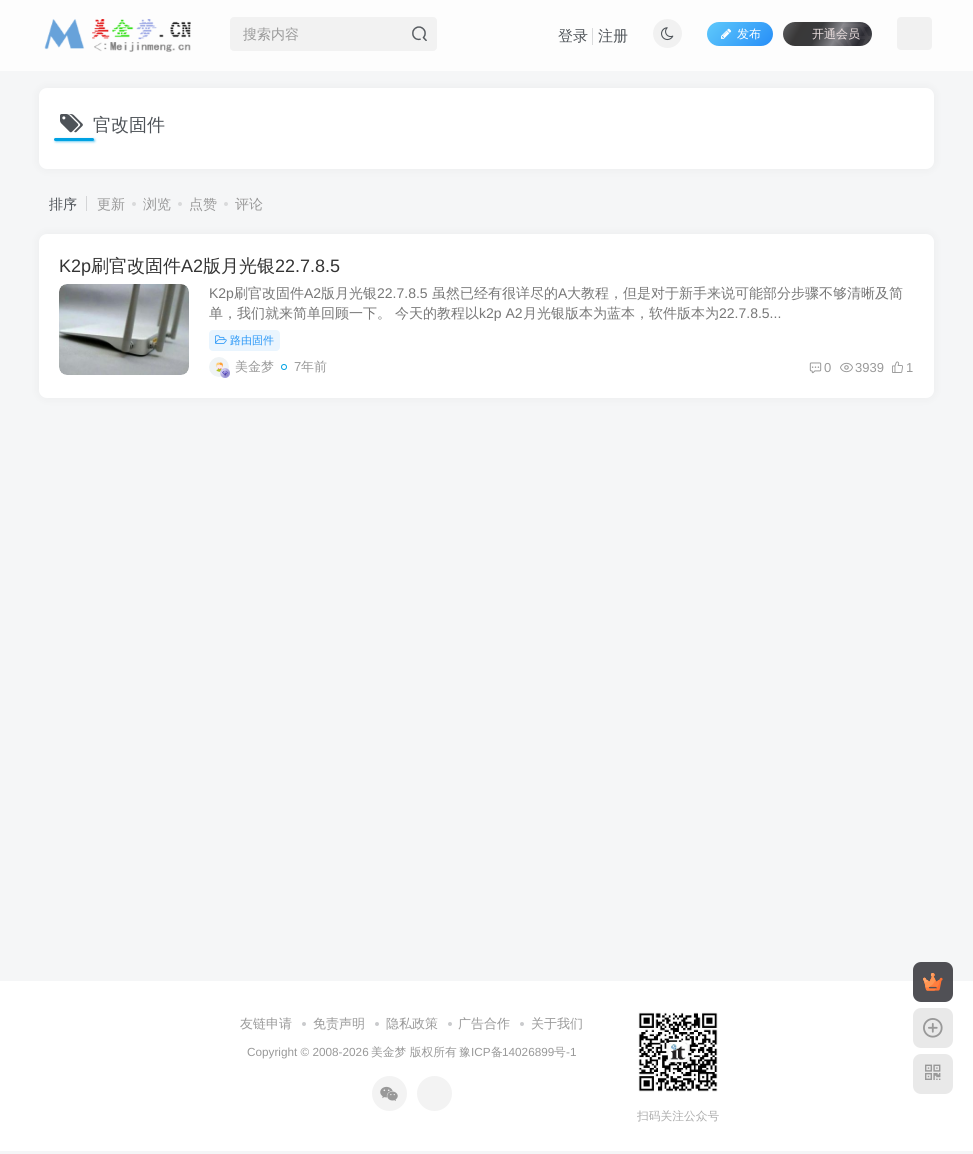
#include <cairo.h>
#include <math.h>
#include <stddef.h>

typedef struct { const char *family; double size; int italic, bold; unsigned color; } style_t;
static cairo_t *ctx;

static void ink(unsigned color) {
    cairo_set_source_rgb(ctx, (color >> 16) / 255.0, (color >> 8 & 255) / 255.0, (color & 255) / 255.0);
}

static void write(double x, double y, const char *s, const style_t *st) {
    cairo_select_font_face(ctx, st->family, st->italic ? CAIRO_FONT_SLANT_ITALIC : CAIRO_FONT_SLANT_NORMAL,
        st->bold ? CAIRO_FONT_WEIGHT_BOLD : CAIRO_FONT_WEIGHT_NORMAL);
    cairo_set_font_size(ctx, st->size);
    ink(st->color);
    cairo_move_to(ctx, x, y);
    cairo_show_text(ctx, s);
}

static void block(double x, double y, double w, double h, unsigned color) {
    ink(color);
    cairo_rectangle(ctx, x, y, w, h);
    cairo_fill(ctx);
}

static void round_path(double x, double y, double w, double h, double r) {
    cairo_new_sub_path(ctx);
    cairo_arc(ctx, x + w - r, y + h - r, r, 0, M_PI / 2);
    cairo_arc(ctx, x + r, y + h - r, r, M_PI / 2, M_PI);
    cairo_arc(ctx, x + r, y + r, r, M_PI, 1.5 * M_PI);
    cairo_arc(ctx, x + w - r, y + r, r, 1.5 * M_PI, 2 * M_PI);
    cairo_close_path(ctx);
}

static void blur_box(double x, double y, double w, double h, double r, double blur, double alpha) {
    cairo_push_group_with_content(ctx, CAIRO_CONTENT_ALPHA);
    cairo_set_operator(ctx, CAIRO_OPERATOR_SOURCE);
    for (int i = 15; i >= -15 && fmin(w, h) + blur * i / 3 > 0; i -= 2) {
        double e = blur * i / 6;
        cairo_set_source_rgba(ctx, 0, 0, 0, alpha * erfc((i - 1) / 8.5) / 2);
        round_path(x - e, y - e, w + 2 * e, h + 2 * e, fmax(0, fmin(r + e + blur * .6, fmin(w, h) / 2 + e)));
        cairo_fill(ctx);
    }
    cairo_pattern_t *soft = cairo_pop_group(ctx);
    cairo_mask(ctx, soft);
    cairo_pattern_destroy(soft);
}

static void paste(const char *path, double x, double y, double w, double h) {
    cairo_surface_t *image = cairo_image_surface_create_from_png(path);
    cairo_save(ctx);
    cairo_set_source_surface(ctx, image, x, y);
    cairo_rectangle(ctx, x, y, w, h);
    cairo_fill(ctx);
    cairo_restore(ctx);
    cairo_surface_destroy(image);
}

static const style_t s1 = {"WenQuanYi Zen Hei Medium", 14, 0, 0, 0x999999};
static const style_t s2 = {"WenQuanYi Zen Hei Medium", 15, 0, 0, 0x4e5358};
static const style_t s3 = {"WenQuanYi Zen Hei Medium", 12, 0, 0, 0xffffff};
static const style_t s4 = {"WenQuanYi Zen Hei Medium", 12, 0, 0, 0xece0e0};
static const style_t s5 = {"WenQuanYi Zen Hei Medium", 18, 0, 0, 0x4e5358};
static const style_t s6 = {"WenQuanYi Zen Hei Medium", 14, 0, 0, 0x4e5358};
static const style_t s7 = {"Liberation Sans", 18, 0, 0, 0x333333};
static const style_t s8 = {"WenQuanYi Zen Hei Medium", 18, 0, 0, 0x333333};
static const style_t s9 = {"Liberation Sans", 14, 0, 0, 0x777777};
static const style_t s10 = {"WenQuanYi Zen Hei Medium", 14, 0, 0, 0x777777};
static const style_t s11 = {"WenQuanYi Zen Hei Medium", 11, 0, 0, 0x2997f7};
static const style_t s12 = {"WenQuanYi Zen Hei Medium", 13, 0, 0, 0x999999};
static const style_t s13 = {"Liberation Sans", 13, 0, 0, 0x999999};
static const style_t s14 = {"Liberation Sans", 11.75, 0, 0, 0x999999};
static const style_t s15 = {"WenQuanYi Zen Hei Medium", 11.75, 0, 0, 0x999999};
static const style_t s16 = {"WenQuanYi Zen Hei Medium", 11.75, 0, 0, 0xadadad};

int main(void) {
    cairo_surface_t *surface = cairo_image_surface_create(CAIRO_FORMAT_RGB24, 973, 1154);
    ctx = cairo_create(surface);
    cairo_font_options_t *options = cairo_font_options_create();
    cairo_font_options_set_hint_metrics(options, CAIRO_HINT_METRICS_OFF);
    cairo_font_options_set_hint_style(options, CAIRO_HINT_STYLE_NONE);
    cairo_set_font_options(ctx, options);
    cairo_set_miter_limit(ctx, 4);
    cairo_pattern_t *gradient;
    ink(0xf5f6f7);
    cairo_paint(ctx);
    block(0, 0, 973, 71, 0xfdfdfd);
    paste("pic1.png", 44, 19, 147, 33);
    ink(0xf2f2f2);
    round_path(230, 17, 207, 34, 4);
    cairo_fill(ctx);
    write(243, 39, "搜索内容", &s1);
    paste("pic2.png", 412, 26, 15, 15);
    write(558, 41, "登录", &s2);
    block(592, 28, 1, 17, 0xdadbdc);
    write(598, 41, "注册", &s2);
    ink(0xf1f1f1);
    cairo_new_path(ctx);
    cairo_arc(ctx, 667.5, 33.5, 14.5, 0, 2 * M_PI);
    cairo_fill(ctx);
    paste("pic3.png", 661, 27, 13, 14);
    gradient = cairo_pattern_create_linear(718, 12, 763, 57);
    cairo_pattern_add_color_stop_rgba(gradient, 0.1, 0.349, 0.765, 0.984, 1);
    cairo_pattern_add_color_stop_rgba(gradient, 1, 0.149, 0.553, 0.969, 1);
    cairo_set_source(ctx, gradient);
    cairo_pattern_destroy(gradient);
    round_path(707, 22, 66, 24, 12);
    cairo_fill(ctx);
    paste("pic4.png", 721, 28, 11, 11);
    write(737, 38, "发布", &s3);
    gradient = cairo_pattern_create_linear(866, 56, 789, 12);
    cairo_pattern_add_color_stop_rgba(gradient, 0, 0.298, 0.302, 0.318, 1);
    cairo_pattern_add_color_stop_rgba(gradient, 0.15, 0.165, 0.165, 0.192, 1);
    cairo_pattern_add_color_stop_rgba(gradient, 0.4, 0.522, 0.522, 0.541, 1);
    cairo_pattern_add_color_stop_rgba(gradient, 0.6, 0.224, 0.227, 0.235, 1);
    cairo_pattern_add_color_stop_rgba(gradient, 0.8, 0.224, 0.22, 0.22, 1);
    cairo_pattern_add_color_stop_rgba(gradient, 1, 0.369, 0.373, 0.384, 1);
    cairo_set_source(ctx, gradient);
    cairo_pattern_destroy(gradient);
    round_path(783, 22, 89, 24, 12);
    cairo_fill(ctx);
    block(795, 25, 1, 1, 0x4d4745);
    write(812, 38, "开通会员", &s4);
    paste("pic5.png", 833, 24, 39, 22);
    ink(0xf1f1f1);
    round_path(897, 17, 35, 33, 4);
    cairo_fill(ctx);
    ink(0x747474);
    blur_box(39, 88, 895, 81, 8, 5, 0.08);
    ink(0xffffff);
    round_path(39, 88, 895, 81, 8);
    cairo_fill(ctx);
    paste("pic6.png", 60, 114, 23, 19);
    write(93, 131, "官改固件", &s5);
    ink(0x00a2e3);
    blur_box(56, 140, 38, 1, 0.5, 1.5, 1);
    ink(0x00a2e3);
    round_path(54, 138, 40, 3, 1.5);
    cairo_fill(ctx);
    write(49, 209, "排序", &s6);
    block(86, 196, 1, 15, 0xd4d5d7);
    write(97, 209, "更新", &s1);
    ink(0xd9dadb);
    cairo_new_path(ctx);
    cairo_arc(ctx, 134, 204, 2, 0, 2 * M_PI);
    cairo_fill(ctx);
    write(143, 209, "浏览", &s1);
    ink(0xd9dadb);
    cairo_new_path(ctx);
    cairo_arc(ctx, 180, 204, 2, 0, 2 * M_PI);
    cairo_fill(ctx);
    write(189, 209, "点赞", &s1);
    ink(0xd9dadb);
    cairo_new_path(ctx);
    cairo_arc(ctx, 226, 204, 2, 0, 2 * M_PI);
    cairo_fill(ctx);
    write(235, 209, "评论", &s1);
    ink(0x747474);
    blur_box(39, 234, 895, 164, 8, 5, 0.08);
    ink(0xffffff);
    round_path(39, 234, 895, 164, 8);
    cairo_fill(ctx);
    write(59, 272, "K2p", &s7);
    write(91, 272, "刷官改固件", &s8);
    write(181, 272, "A2", &s7);
    write(203, 272, "版月光银", &s8);
    write(275, 272, "22.7.8.5", &s7);
    paste("pic7.png", 59, 284, 130, 91);
    write(209, 298, "K2p", &s9);
    write(234, 298, "刷官改固件", &s10);
    write(304, 298, "A2", &s9);
    write(321, 298, "版月光银", &s10);
    write(377, 298, "22.7.8.5", &s9);
    write(432, 298, "虽然已经有很详尽的", &s10);
    write(558, 298, "A", &s9);
    write(567, 298, "大教程，但是对于新手来说可能部分步骤不够清晰及简", &s10);
    write(209, 318, "单，我们就来简单回顾一下。", &s10);
    write(395, 318, "今天的教程以", &s10);
    write(479, 318, "k2p A2", &s9);
    write(523, 318, "月光银版本为蓝本，软件版本为", &s10);
    write(719, 318, "22.7.8.5...", &s9);
    ink(0xeaf5fe);
    round_path(209, 330, 71, 21, 4);
    cairo_fill(ctx);
    paste("pic8.png", 215, 335, 12, 9);
    write(230, 344, "路由固件", &s11);
    paste("pic9.png", 209, 357, 20, 20);
    paste("pic10.png", 220, 368, 10, 10);
    write(235, 371, "美金梦", &s12);
    cairo_new_path(ctx);
    cairo_arc(ctx, 284, 367, 2.5, 0, 2 * M_PI);
    ink(0x00a2e3);
    cairo_set_line_width(ctx, 1);
    cairo_stroke(ctx);
    write(294, 371, "7", &s13);
    write(301, 371, "年前", &s12);
    paste("pic11.png", 809, 362, 13, 12);
    write(824, 372, "0", &s13);
    paste("pic12.png", 840, 362, 13, 11);
    write(855, 372, "3939", &s13);
    paste("pic13.png", 892, 361, 11, 12);
    write(906, 372, "1", &s13);
    block(0, 981, 973, 170, 0xffffff);
    write(240, 1028, "友链申请", &s12);
    ink(0xcacbcd);
    cairo_new_path(ctx);
    cairo_arc(ctx, 304, 1024, 2, 0, 2 * M_PI);
    cairo_fill(ctx);
    write(313, 1028, "免责声明", &s12);
    ink(0xcacbcd);
    cairo_new_path(ctx);
    cairo_arc(ctx, 377, 1024, 2, 0, 2 * M_PI);
    cairo_fill(ctx);
    write(386, 1028, "隐私政策", &s12);
    ink(0xcacbcd);
    cairo_new_path(ctx);
    cairo_arc(ctx, 450, 1024, 2, 0, 2 * M_PI);
    cairo_fill(ctx);
    write(458, 1028, "广告合作", &s12);
    ink(0xcacbcd);
    cairo_new_path(ctx);
    cairo_arc(ctx, 522, 1024, 2, 0, 2 * M_PI);
    cairo_fill(ctx);
    write(531, 1028, "关于我们", &s12);
    write(247, 1056, "Copyright © 2008-2026", &s14);
    write(371, 1056, "美金梦 版权所有", &s15);
    write(459, 1056, "豫", &s15);
    write(471, 1056, "ICP", &s14);
    write(491, 1056, "备", &s15);
    write(502, 1056, "14026899", &s14);
    write(554, 1056, "号", &s15);
    write(566, 1056, "-1", &s14);
    ink(0xf3f3f3);
    cairo_new_path(ctx);
    cairo_arc(ctx, 389.5, 1093.5, 17.5, 0, 2 * M_PI);
    cairo_fill(ctx);
    paste("pic14.png", 380, 1086, 18, 15);
    cairo_arc(ctx, 434.5, 1093.5, 17.5, 0, 2 * M_PI);
    cairo_fill(ctx);
    paste("pic15.png", 638, 1012, 80, 80);
    write(637, 1120, "扫码关注公众号", &s16);
    cairo_set_source_rgba(ctx, 0.243, 0.243, 0.263, 0.9);
    round_path(913, 962, 40, 40, 8);
    cairo_fill(ctx);
    paste("pic16.png", 923, 973, 20, 18);
    ink(0xe9e9e9);
    round_path(913, 1008, 40, 40, 8);
    cairo_fill(ctx);
    paste("pic17.png", 923, 1018, 20, 20);
    round_path(913, 1054, 40, 40, 8);
    cairo_fill(ctx);
    paste("pic18.png", 925, 1064, 16, 16);
    cairo_surface_write_to_png(surface, "screenshot.png");
    cairo_font_options_destroy(options);
    cairo_destroy(ctx);
    cairo_surface_destroy(surface);
    return 0;
}
